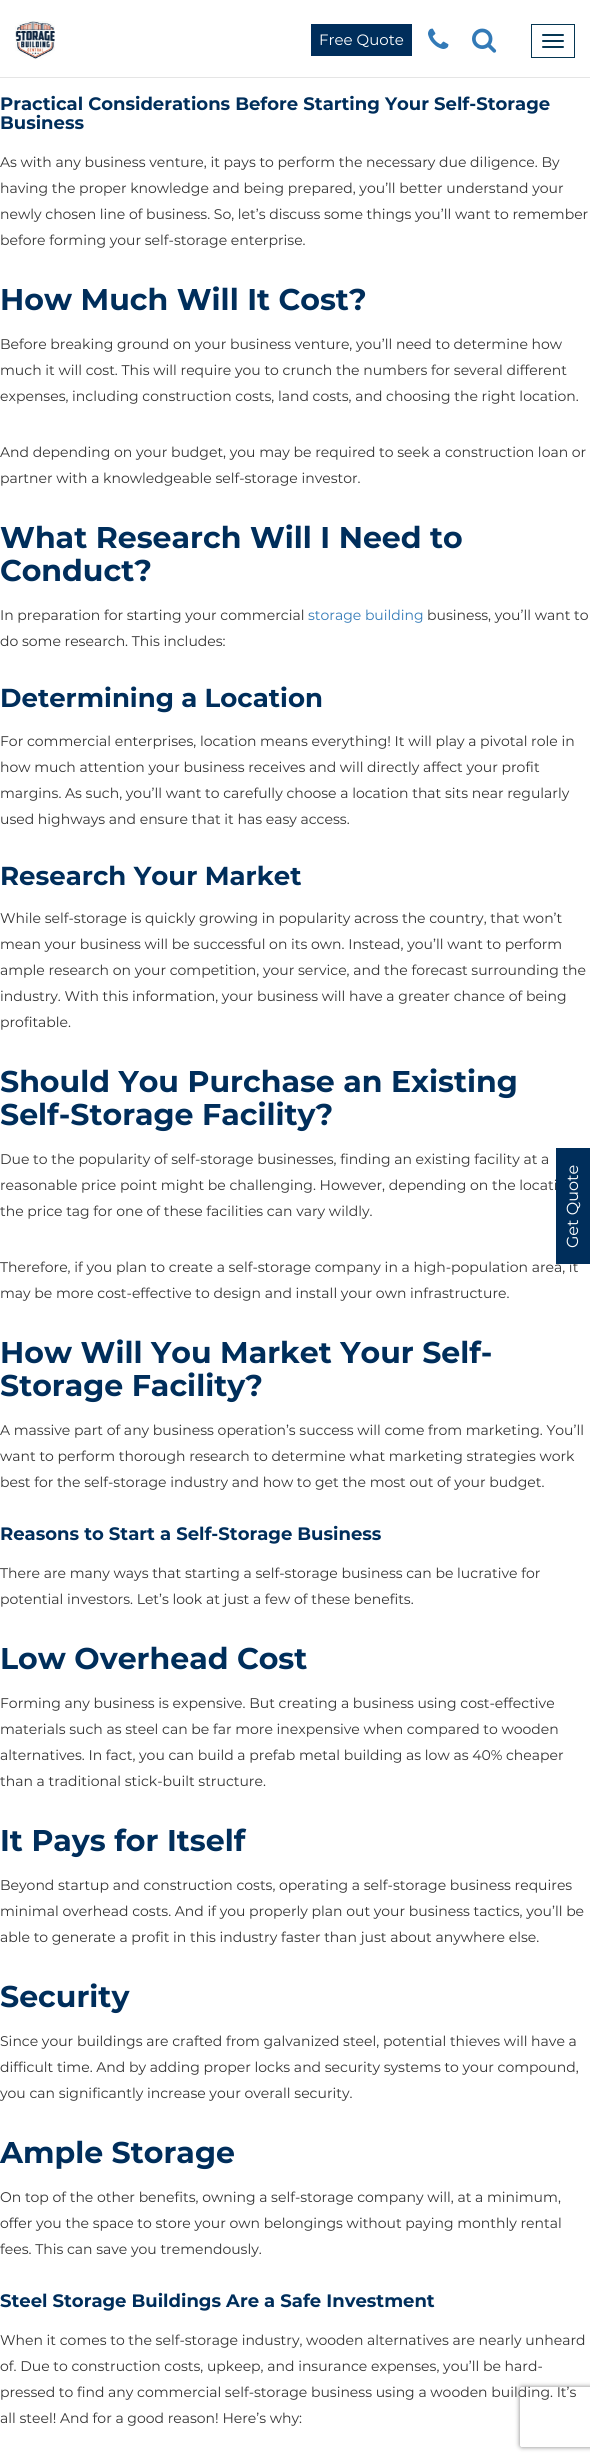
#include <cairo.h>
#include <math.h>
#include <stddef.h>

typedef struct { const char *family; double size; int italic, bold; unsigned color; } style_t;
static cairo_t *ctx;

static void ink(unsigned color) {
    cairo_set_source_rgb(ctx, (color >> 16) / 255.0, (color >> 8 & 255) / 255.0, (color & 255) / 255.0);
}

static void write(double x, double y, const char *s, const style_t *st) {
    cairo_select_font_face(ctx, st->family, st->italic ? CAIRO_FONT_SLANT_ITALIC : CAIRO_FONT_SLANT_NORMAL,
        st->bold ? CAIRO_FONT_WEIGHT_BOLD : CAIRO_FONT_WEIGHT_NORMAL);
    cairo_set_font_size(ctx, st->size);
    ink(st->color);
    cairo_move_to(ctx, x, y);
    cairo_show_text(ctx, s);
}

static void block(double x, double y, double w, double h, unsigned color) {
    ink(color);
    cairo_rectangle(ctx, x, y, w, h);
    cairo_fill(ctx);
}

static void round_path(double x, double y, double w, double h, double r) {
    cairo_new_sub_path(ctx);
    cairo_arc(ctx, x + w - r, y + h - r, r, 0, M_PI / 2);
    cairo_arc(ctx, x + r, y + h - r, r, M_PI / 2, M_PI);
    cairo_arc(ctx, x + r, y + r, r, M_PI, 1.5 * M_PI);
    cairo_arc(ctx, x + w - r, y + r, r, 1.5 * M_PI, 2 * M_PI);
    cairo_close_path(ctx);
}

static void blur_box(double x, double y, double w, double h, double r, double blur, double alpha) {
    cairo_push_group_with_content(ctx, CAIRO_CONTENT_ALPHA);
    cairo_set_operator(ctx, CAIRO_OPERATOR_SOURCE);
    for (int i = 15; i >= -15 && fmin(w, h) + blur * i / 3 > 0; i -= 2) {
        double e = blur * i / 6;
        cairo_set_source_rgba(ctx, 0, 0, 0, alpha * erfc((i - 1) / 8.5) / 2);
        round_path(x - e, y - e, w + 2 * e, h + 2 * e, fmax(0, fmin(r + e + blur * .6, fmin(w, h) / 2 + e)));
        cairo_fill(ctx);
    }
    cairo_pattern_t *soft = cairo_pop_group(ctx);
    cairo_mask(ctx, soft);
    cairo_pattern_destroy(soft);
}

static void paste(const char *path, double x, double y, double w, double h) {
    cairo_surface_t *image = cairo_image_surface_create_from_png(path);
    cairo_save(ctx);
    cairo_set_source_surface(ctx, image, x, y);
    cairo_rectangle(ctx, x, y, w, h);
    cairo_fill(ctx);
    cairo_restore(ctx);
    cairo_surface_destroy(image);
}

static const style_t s1 = {"Montserrat", 15, 0, 0, 0xffffff};
static const style_t s2 = {"Montserrat", 18, 0, 1, 0x002e5b};
static const style_t s3 = {"Montserrat", 14, 0, 0, 0x333333};
static const style_t s4 = {"Montserrat", 30, 0, 1, 0x002e5b};
static const style_t s5 = {"Montserrat", 14, 0, 0, 0x337ab7};
static const style_t s6 = {"Montserrat", 26, 0, 1, 0x002e5b};
static const style_t s7 = {"Montserrat", 16, 0, 0, 0xffffff};

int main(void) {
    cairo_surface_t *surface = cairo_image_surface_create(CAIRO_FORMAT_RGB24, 590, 2461);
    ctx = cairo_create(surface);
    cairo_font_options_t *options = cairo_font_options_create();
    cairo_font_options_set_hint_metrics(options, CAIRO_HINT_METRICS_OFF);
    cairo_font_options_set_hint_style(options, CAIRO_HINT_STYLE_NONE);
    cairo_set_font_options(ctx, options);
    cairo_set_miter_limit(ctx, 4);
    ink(0xffffff);
    cairo_paint(ctx);
    block(0, 77, 590, 1, 0xe5e5e5);
    paste("pic1.png", 15, 21, 40, 38);
    block(311, 24, 101, 32, 0x002e5b);
    write(319, 45, "Free Quote", &s1);
    paste("pic2.png", 428, 28, 21, 21);
    paste("pic3.png", 472, 28, 25, 25);
    cairo_rectangle(ctx, 531.5, 24.5, 43, 33);
    ink(0x053652);
    cairo_set_line_width(ctx, 1);
    cairo_stroke(ctx);
    round_path(542, 34, 22, 2, 1);
    cairo_fill(ctx);
    round_path(542, 40, 22, 2, 1);
    cairo_fill(ctx);
    round_path(542, 46, 22, 2, 1);
    cairo_fill(ctx);
    write(0, 110, "Practical Considerations Before Starting Your Self-Storage", &s2);
    write(0, 129, "Business", &s2);
    write(0, 167, "As with any business venture, it pays to perform the necessary due diligence. By", &s3);
    write(0, 193, "having the proper knowledge and being prepared, you’ll better understand your", &s3);
    write(0, 219, "newly chosen line of business. So, let’s discuss some things you’ll want to remember", &s3);
    write(0, 245, "before forming your self-storage enterprise.", &s3);
    write(0, 310, "How Much Will It Cost?", &s4);
    write(0, 349, "Before breaking ground on your business venture, you’ll need to determine how", &s3);
    write(0, 375, "much it will cost. This will require you to crunch the numbers for several different", &s3);
    write(0, 401, "expenses, including construction costs, land costs, and choosing the right location.", &s3);
    write(0, 457, "And depending on your budget, you may be required to seek a construction loan or", &s3);
    write(0, 483, "partner with a knowledgeable self-storage investor.", &s3);
    write(0, 548, "What Research Will I Need to", &s4);
    write(0, 581, "Conduct?", &s4);
    write(0, 620, "In preparation for starting your commercial", &s3);
    write(308, 620, "storage building", &s5);
    write(427, 620, "business, you’ll want to", &s3);
    write(0, 646, "do some research. This includes:", &s3);
    write(0, 707, "Determining a Location", &s6);
    write(0, 746, "For commercial enterprises, location means everything! It will play a pivotal role in", &s3);
    write(0, 772, "how much attention your business receives and will directly affect your profit", &s3);
    write(0, 798, "margins. As such, you’ll want to carefully choose a location that sits near regularly", &s3);
    write(0, 824, "used highways and ensure that it has easy access.", &s3);
    write(0, 885, "Research Your Market", &s6);
    write(0, 923, "While self-storage is quickly growing in popularity across the country, that won’t", &s3);
    write(0, 949, "mean your business will be successful on its own. Instead, you’ll want to perform", &s3);
    write(0, 975, "ample research on your competition, your service, and the forecast surrounding the", &s3);
    write(0, 1001, "industry. With this information, your business will have a greater chance of being", &s3);
    write(0, 1027, "profitable.", &s3);
    write(0, 1092, "Should You Purchase an Existing", &s4);
    write(0, 1125, "Self-Storage Facility?", &s4);
    write(0, 1164, "Due to the popularity of self-storage businesses, finding an existing facility at a", &s3);
    write(0, 1190, "reasonable price point might be challenging. However, depending on the locati", &s3);
    write(0, 1216, "the price tag for one of these facilities can vary wildly.", &s3);
    write(0, 1272, "Therefore, if you plan to create a self-storage company in a high-population area, it", &s3);
    write(0, 1298, "may be more cost-effective to design and install your own infrastructure.", &s3);
    write(0, 1363, "How Will You Market Your Self-", &s4);
    write(0, 1396, "Storage Facility?", &s4);
    write(0, 1435, "A massive part of any business operation’s success will come from marketing. You’ll", &s3);
    write(0, 1461, "want to perform thorough research to determine what marketing strategies work", &s3);
    write(0, 1487, "best for the self-storage industry and how to get the most out of your budget.", &s3);
    write(0, 1540, "Reasons to Start a Self-Storage Business", &s2);
    write(0, 1578, "There are many ways that starting a self-storage business can be lucrative for", &s3);
    write(0, 1604, "potential investors. Let’s look at just a few of these benefits.", &s3);
    write(0, 1669, "Low Overhead Cost", &s4);
    write(0, 1708, "Forming any business is expensive. But creating a business using cost-effective", &s3);
    write(0, 1734, "materials such as steel can be far more inexpensive when compared to wooden", &s3);
    write(0, 1760, "alternatives. In fact, you can build a prefab metal building as low as 40% cheaper", &s3);
    write(0, 1786, "than a traditional stick-built structure.", &s3);
    write(0, 1851, "It Pays for Itself", &s4);
    write(0, 1890, "Beyond startup and construction costs, operating a self-storage business requires", &s3);
    write(0, 1916, "minimal overhead costs. And if you properly plan out your business tactics, you’ll be", &s3);
    write(0, 1942, "able to generate a profit in this industry faster than just about anywhere else.", &s3);
    write(0, 2007, "Security", &s4);
    write(0, 2046, "Since your buildings are crafted from galvanized steel, potential thieves will have a", &s3);
    write(0, 2072, "difficult time. And by adding proper locks and security systems to your compound,", &s3);
    write(0, 2098, "you can significantly increase your overall security.", &s3);
    write(0, 2163, "Ample Storage", &s4);
    write(0, 2202, "On top of the other benefits, owning a self-storage company will, at a minimum,", &s3);
    write(0, 2228, "offer you the space to store your own belongings without paying monthly rental", &s3);
    write(0, 2254, "fees. This can save you tremendously.", &s3);
    write(0, 2307, "Steel Storage Buildings Are a Safe Investment", &s2);
    write(0, 2345, "When it comes to the self-storage industry, wooden alternatives are nearly unheard", &s3);
    write(0, 2371, "of. Due to construction costs, upkeep, and insurance expenses, you’ll be hard-", &s3);
    write(0, 2397, "pressed to find any commercial self-storage business using a wooden building. It’s", &s3);
    write(0, 2423, "all steel! And for a good reason! Here’s why:", &s3);
    block(556, 1148, 34, 116, 0x002e5b);
    cairo_save(ctx);
    cairo_translate(ctx, 578, 1248);
    cairo_rotate(ctx, -90 * M_PI / 180);
    write(0, 0, "Get Quote", &s7);
    cairo_restore(ctx);
    cairo_save(ctx);
    cairo_set_fill_rule(ctx, CAIRO_FILL_RULE_EVEN_ODD);
    cairo_new_path(ctx);
    cairo_move_to(ctx, 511, 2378);
    cairo_line_to(ctx, 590, 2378);
    cairo_line_to(ctx, 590, 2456);
    cairo_line_to(ctx, 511, 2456);
    cairo_close_path(ctx);
    cairo_move_to(ctx, 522, 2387);
    cairo_line_to(ctx, 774, 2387);
    cairo_curve_to(ctx, 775, 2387, 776, 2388, 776, 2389);
    cairo_line_to(ctx, 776, 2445);
    cairo_curve_to(ctx, 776, 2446, 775, 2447, 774, 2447);
    cairo_line_to(ctx, 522, 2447);
    cairo_curve_to(ctx, 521, 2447, 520, 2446, 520, 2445);
    cairo_line_to(ctx, 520, 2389);
    cairo_curve_to(ctx, 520, 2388, 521, 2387, 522, 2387);
    cairo_close_path(ctx);
    cairo_clip(ctx);
    ink(0x808080);
    blur_box(520, 2387, 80, 60, 2, 2.5, 1);
    cairo_restore(ctx);
    cairo_surface_write_to_png(surface, "screenshot.png");
    cairo_font_options_destroy(options);
    cairo_destroy(ctx);
    cairo_surface_destroy(surface);
    return 0;
}
